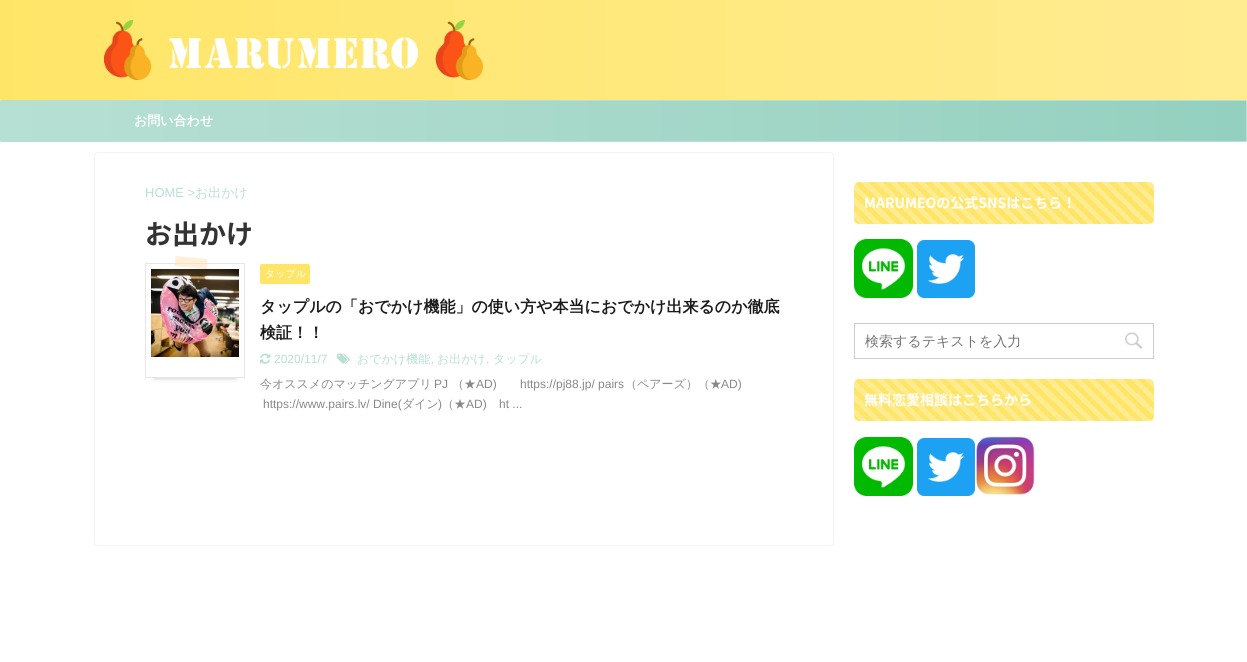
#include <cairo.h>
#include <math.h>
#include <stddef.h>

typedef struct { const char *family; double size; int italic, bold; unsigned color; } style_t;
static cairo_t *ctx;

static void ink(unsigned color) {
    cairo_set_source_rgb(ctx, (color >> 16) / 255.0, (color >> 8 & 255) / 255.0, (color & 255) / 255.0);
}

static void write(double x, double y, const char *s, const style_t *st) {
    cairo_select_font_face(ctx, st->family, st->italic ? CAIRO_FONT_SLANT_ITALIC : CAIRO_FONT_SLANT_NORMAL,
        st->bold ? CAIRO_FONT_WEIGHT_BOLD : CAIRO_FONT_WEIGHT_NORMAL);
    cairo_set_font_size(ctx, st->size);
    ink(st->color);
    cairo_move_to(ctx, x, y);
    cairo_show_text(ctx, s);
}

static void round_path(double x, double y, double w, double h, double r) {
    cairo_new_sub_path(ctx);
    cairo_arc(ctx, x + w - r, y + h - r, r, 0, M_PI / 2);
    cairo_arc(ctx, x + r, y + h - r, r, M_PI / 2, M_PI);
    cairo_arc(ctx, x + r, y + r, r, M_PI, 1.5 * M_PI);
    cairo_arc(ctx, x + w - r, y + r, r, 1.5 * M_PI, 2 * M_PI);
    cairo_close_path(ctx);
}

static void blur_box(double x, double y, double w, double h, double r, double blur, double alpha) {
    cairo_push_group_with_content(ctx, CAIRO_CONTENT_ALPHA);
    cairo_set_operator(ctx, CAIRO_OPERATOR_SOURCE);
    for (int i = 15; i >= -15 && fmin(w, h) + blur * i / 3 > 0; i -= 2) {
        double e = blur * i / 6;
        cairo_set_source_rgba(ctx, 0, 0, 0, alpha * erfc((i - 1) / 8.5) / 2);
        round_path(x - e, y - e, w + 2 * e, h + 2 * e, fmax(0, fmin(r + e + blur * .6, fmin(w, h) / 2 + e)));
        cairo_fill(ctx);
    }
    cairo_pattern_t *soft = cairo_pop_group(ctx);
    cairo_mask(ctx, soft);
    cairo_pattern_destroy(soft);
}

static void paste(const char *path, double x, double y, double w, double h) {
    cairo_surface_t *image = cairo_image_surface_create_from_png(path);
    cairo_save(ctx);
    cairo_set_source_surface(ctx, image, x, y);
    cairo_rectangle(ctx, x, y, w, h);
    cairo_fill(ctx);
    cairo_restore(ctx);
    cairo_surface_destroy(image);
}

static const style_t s1 = {"WenQuanYi Zen Hei", 13, 0, 1, 0xffffff};
static const style_t s2 = {"Liberation Sans", 13, 0, 0, 0xb7e0d4};
static const style_t s3 = {"WenQuanYi Zen Hei Medium", 13, 0, 0, 0xb7e0d4};
static const style_t s4 = {"Noto Sans JP", 27, 0, 1, 0x333333};
static const style_t s5 = {"WenQuanYi Zen Hei Medium", 10, 0, 0, 0xffffff};
static const style_t s6 = {"WenQuanYi Zen Hei", 16, 0, 1, 0x1a1a1a};
static const style_t s7 = {"Liberation Sans", 12, 0, 0, 0xb7e0d4};
static const style_t s8 = {"WenQuanYi Zen Hei Medium", 12, 0, 0, 0xb7e0d4};
static const style_t s9 = {"WenQuanYi Zen Hei Medium", 12, 0, 0, 0x888888};
static const style_t s10 = {"Liberation Sans", 12, 0, 0, 0x888888};
static const style_t s11 = {"Noto Sans JP", 14, 0, 1, 0xffffff};
static const style_t s12 = {"WenQuanYi Zen Hei Medium", 14, 0, 0, 0x757575};

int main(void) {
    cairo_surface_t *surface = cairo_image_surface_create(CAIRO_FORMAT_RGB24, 1247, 662);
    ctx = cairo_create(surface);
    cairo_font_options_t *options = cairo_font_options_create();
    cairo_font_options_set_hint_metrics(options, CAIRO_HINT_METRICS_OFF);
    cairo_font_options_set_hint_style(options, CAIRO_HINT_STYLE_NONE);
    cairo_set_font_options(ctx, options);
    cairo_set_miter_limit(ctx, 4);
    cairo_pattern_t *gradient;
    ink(0xffffff);
    cairo_paint(ctx);
    gradient = cairo_pattern_create_linear(1247, 50, 0, 50);
    cairo_pattern_add_color_stop_rgba(gradient, 0, 1, 0.925, 0.569, 1);
    cairo_pattern_add_color_stop_rgba(gradient, 1, 1, 0.898, 0.404, 1);
    cairo_set_source(ctx, gradient);
    cairo_pattern_destroy(gradient);
    cairo_rectangle(ctx, 0, 0, 1247, 100);
    cairo_fill(ctx);
    paste("pic1.png", 104, 20, 379, 60);
    gradient = cairo_pattern_create_linear(1246, 121, 1, 121);
    cairo_pattern_add_color_stop_rgba(gradient, 0, 0.58, 0.816, 0.749, 1);
    cairo_pattern_add_color_stop_rgba(gradient, 1, 0.718, 0.878, 0.831, 1);
    cairo_set_source(ctx, gradient);
    cairo_pattern_destroy(gradient);
    cairo_rectangle(ctx, 1, 101, 1245, 40);
    cairo_fill(ctx);
    round_path(0.5, 100.5, 1246, 41, 0.5);
    ink(0xb7e0d4);
    cairo_set_line_width(ctx, 1);
    cairo_stroke(ctx);
    write(134, 125, "お問い合わせ", &s1);
    round_path(94.5, 152.5, 739, 393, 3.5);
    ink(0xf3f3f3);
    cairo_stroke(ctx);
    write(145, 197, "HOME >", &s2);
    write(195, 197, "お出かけ", &s3);
    write(145, 244, "お出かけ", &s4);
    cairo_save(ctx);
    cairo_rectangle(ctx, 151, 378, 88, 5);
    cairo_clip(ctx);
    ink(0xbebebe);
    blur_box(155, 283, 80, 95, 0, 2.5, 1);
    cairo_restore(ctx);
    cairo_rectangle(ctx, 145.5, 263.5, 99, 114);
    ink(0xe6e6e6);
    cairo_stroke(ctx);
    cairo_set_source_rgba(ctx, 1, 0.878, 0.698, 0.5);
    cairo_new_path(ctx);
    cairo_move_to(ctx, 175.5, 256);
    cairo_line_to(ctx, 207.5, 259);
    cairo_line_to(ctx, 206.5, 269);
    cairo_line_to(ctx, 174.5, 266);
    cairo_close_path(ctx);
    cairo_fill(ctx);
    paste("pic2.png", 151, 269, 88, 88);
    ink(0xffe567);
    round_path(260, 264, 50, 20, 2);
    cairo_fill(ctx);
    write(265, 277, "タップル", &s5);
    write(260, 312, "タップルの「おでかけ機能」の使い方や本当におでかけ出来るのか徹底", &s6);
    write(260, 338, "検証！！", &s6);
    paste("pic3.png", 260, 353, 11, 11);
    write(274, 363, "2020/11/7", &s7);
    paste("pic4.png", 337, 353, 13, 11);
    write(357, 363, "おでかけ機能", &s8);
    write(431, 363, ",", &s7);
    write(437, 363, "お出かけ", &s8);
    write(486, 363, ",", &s7);
    write(493, 363, "タップル", &s8);
    write(260, 388, "今オススメのマッチングアプリ", &s9);
    write(434, 388, "PJ", &s10);
    write(452, 388, "（★", &s9);
    write(476, 388, "AD)", &s10);
    write(520, 388, "https://pj88.jp/ pairs", &s10);
    write(625, 388, "（ペアーズ）（★", &s9);
    write(721, 388, "AD)", &s10);
    write(263, 408, "https://www.pairs.lv/ Dine(", &s10);
    write(402, 408, "ダイン", &s9);
    write(438, 408, ")", &s10);
    write(442, 408, "（★", &s9);
    write(466, 408, "AD)", &s10);
    write(499, 408, "ht ...", &s10);
    gradient = cairo_pattern_create_linear(919, 289, 1095, 112);
    cairo_pattern_add_color_stop_rgba(gradient, 0, 1, 0.898, 0.404, 1);
    cairo_pattern_add_color_stop_rgba(gradient, 0.02, 1, 0.898, 0.404, 1);
    cairo_pattern_add_color_stop_rgba(gradient, 0.02, 1, 0.925, 0.569, 1);
    cairo_pattern_add_color_stop_rgba(gradient, 0.04, 1, 0.925, 0.569, 1);
    cairo_pattern_add_color_stop_rgba(gradient, 0.04, 1, 0.898, 0.404, 1);
    cairo_pattern_add_color_stop_rgba(gradient, 0.06, 1, 0.898, 0.404, 1);
    cairo_pattern_add_color_stop_rgba(gradient, 0.06, 1, 0.925, 0.569, 1);
    cairo_pattern_add_color_stop_rgba(gradient, 0.08, 1, 0.925, 0.569, 1);
    cairo_pattern_add_color_stop_rgba(gradient, 0.08, 1, 0.898, 0.404, 1);
    cairo_pattern_add_color_stop_rgba(gradient, 0.1, 1, 0.898, 0.404, 1);
    cairo_pattern_add_color_stop_rgba(gradient, 0.1, 1, 0.925, 0.569, 1);
    cairo_pattern_add_color_stop_rgba(gradient, 0.12, 1, 0.925, 0.569, 1);
    cairo_pattern_add_color_stop_rgba(gradient, 0.12, 1, 0.898, 0.404, 1);
    cairo_pattern_add_color_stop_rgba(gradient, 0.14, 1, 0.898, 0.404, 1);
    cairo_pattern_add_color_stop_rgba(gradient, 0.14, 1, 0.925, 0.569, 1);
    cairo_pattern_add_color_stop_rgba(gradient, 0.16, 1, 0.925, 0.569, 1);
    cairo_pattern_add_color_stop_rgba(gradient, 0.16, 1, 0.898, 0.404, 1);
    cairo_pattern_add_color_stop_rgba(gradient, 0.18, 1, 0.898, 0.404, 1);
    cairo_pattern_add_color_stop_rgba(gradient, 0.18, 1, 0.925, 0.569, 1);
    cairo_pattern_add_color_stop_rgba(gradient, 0.2, 1, 0.925, 0.569, 1);
    cairo_pattern_add_color_stop_rgba(gradient, 0.2, 1, 0.898, 0.404, 1);
    cairo_pattern_add_color_stop_rgba(gradient, 0.22, 1, 0.898, 0.404, 1);
    cairo_pattern_add_color_stop_rgba(gradient, 0.22, 1, 0.925, 0.569, 1);
    cairo_pattern_add_color_stop_rgba(gradient, 0.24, 1, 0.925, 0.569, 1);
    cairo_pattern_add_color_stop_rgba(gradient, 0.24, 1, 0.898, 0.404, 1);
    cairo_pattern_add_color_stop_rgba(gradient, 0.26, 1, 0.898, 0.404, 1);
    cairo_pattern_add_color_stop_rgba(gradient, 0.26, 1, 0.925, 0.569, 1);
    cairo_pattern_add_color_stop_rgba(gradient, 0.28, 1, 0.925, 0.569, 1);
    cairo_pattern_add_color_stop_rgba(gradient, 0.28, 1, 0.898, 0.404, 1);
    cairo_pattern_add_color_stop_rgba(gradient, 0.3, 1, 0.898, 0.404, 1);
    cairo_pattern_add_color_stop_rgba(gradient, 0.3, 1, 0.925, 0.569, 1);
    cairo_pattern_add_color_stop_rgba(gradient, 0.32, 1, 0.925, 0.569, 1);
    cairo_pattern_add_color_stop_rgba(gradient, 0.32, 1, 0.898, 0.404, 1);
    cairo_pattern_add_color_stop_rgba(gradient, 0.34, 1, 0.898, 0.404, 1);
    cairo_pattern_add_color_stop_rgba(gradient, 0.34, 1, 0.925, 0.569, 1);
    cairo_pattern_add_color_stop_rgba(gradient, 0.36, 1, 0.925, 0.569, 1);
    cairo_pattern_add_color_stop_rgba(gradient, 0.36, 1, 0.898, 0.404, 1);
    cairo_pattern_add_color_stop_rgba(gradient, 0.38, 1, 0.898, 0.404, 1);
    cairo_pattern_add_color_stop_rgba(gradient, 0.38, 1, 0.925, 0.569, 1);
    cairo_pattern_add_color_stop_rgba(gradient, 0.4, 1, 0.925, 0.569, 1);
    cairo_pattern_add_color_stop_rgba(gradient, 0.4, 1, 0.898, 0.404, 1);
    cairo_pattern_add_color_stop_rgba(gradient, 0.42, 1, 0.898, 0.404, 1);
    cairo_pattern_add_color_stop_rgba(gradient, 0.42, 1, 0.925, 0.569, 1);
    cairo_pattern_add_color_stop_rgba(gradient, 0.44, 1, 0.925, 0.569, 1);
    cairo_pattern_add_color_stop_rgba(gradient, 0.44, 1, 0.898, 0.404, 1);
    cairo_pattern_add_color_stop_rgba(gradient, 0.46, 1, 0.898, 0.404, 1);
    cairo_pattern_add_color_stop_rgba(gradient, 0.46, 1, 0.925, 0.569, 1);
    cairo_pattern_add_color_stop_rgba(gradient, 0.48, 1, 0.925, 0.569, 1);
    cairo_pattern_add_color_stop_rgba(gradient, 0.48, 1, 0.898, 0.404, 1);
    cairo_pattern_add_color_stop_rgba(gradient, 0.5, 1, 0.898, 0.404, 1);
    cairo_pattern_add_color_stop_rgba(gradient, 0.5, 1, 0.925, 0.569, 1);
    cairo_pattern_add_color_stop_rgba(gradient, 0.52, 1, 0.925, 0.569, 1);
    cairo_pattern_add_color_stop_rgba(gradient, 0.52, 1, 0.898, 0.404, 1);
    cairo_pattern_add_color_stop_rgba(gradient, 0.54, 1, 0.898, 0.404, 1);
    cairo_pattern_add_color_stop_rgba(gradient, 0.54, 1, 0.925, 0.569, 1);
    cairo_pattern_add_color_stop_rgba(gradient, 0.56, 1, 0.925, 0.569, 1);
    cairo_pattern_add_color_stop_rgba(gradient, 0.56, 1, 0.898, 0.404, 1);
    cairo_pattern_add_color_stop_rgba(gradient, 0.58, 1, 0.898, 0.404, 1);
    cairo_pattern_add_color_stop_rgba(gradient, 0.58, 1, 0.925, 0.569, 1);
    cairo_pattern_add_color_stop_rgba(gradient, 0.6, 1, 0.925, 0.569, 1);
    cairo_pattern_add_color_stop_rgba(gradient, 0.6, 1, 0.898, 0.404, 1);
    cairo_pattern_add_color_stop_rgba(gradient, 0.62, 1, 0.898, 0.404, 1);
    cairo_pattern_add_color_stop_rgba(gradient, 0.62, 1, 0.925, 0.569, 1);
    cairo_pattern_add_color_stop_rgba(gradient, 0.64, 1, 0.925, 0.569, 1);
    cairo_pattern_add_color_stop_rgba(gradient, 0.64, 1, 0.898, 0.404, 1);
    cairo_pattern_add_color_stop_rgba(gradient, 0.66, 1, 0.898, 0.404, 1);
    cairo_pattern_add_color_stop_rgba(gradient, 0.66, 1, 0.925, 0.569, 1);
    cairo_pattern_add_color_stop_rgba(gradient, 0.68, 1, 0.925, 0.569, 1);
    cairo_pattern_add_color_stop_rgba(gradient, 0.68, 1, 0.898, 0.404, 1);
    cairo_pattern_add_color_stop_rgba(gradient, 0.7, 1, 0.898, 0.404, 1);
    cairo_pattern_add_color_stop_rgba(gradient, 0.7, 1, 0.925, 0.569, 1);
    cairo_pattern_add_color_stop_rgba(gradient, 0.72, 1, 0.925, 0.569, 1);
    cairo_pattern_add_color_stop_rgba(gradient, 0.72, 1, 0.898, 0.404, 1);
    cairo_pattern_add_color_stop_rgba(gradient, 0.74, 1, 0.898, 0.404, 1);
    cairo_pattern_add_color_stop_rgba(gradient, 0.74, 1, 0.925, 0.569, 1);
    cairo_pattern_add_color_stop_rgba(gradient, 0.76, 1, 0.925, 0.569, 1);
    cairo_pattern_add_color_stop_rgba(gradient, 0.76, 1, 0.898, 0.404, 1);
    cairo_pattern_add_color_stop_rgba(gradient, 0.78, 1, 0.898, 0.404, 1);
    cairo_pattern_add_color_stop_rgba(gradient, 0.78, 1, 0.925, 0.569, 1);
    cairo_pattern_add_color_stop_rgba(gradient, 0.8, 1, 0.925, 0.569, 1);
    cairo_pattern_add_color_stop_rgba(gradient, 0.8, 1, 0.898, 0.404, 1);
    cairo_pattern_add_color_stop_rgba(gradient, 0.82, 1, 0.898, 0.404, 1);
    cairo_pattern_add_color_stop_rgba(gradient, 0.82, 1, 0.925, 0.569, 1);
    cairo_pattern_add_color_stop_rgba(gradient, 0.84, 1, 0.925, 0.569, 1);
    cairo_pattern_add_color_stop_rgba(gradient, 0.84, 1, 0.898, 0.404, 1);
    cairo_pattern_add_color_stop_rgba(gradient, 0.86, 1, 0.898, 0.404, 1);
    cairo_pattern_add_color_stop_rgba(gradient, 0.86, 1, 0.925, 0.569, 1);
    cairo_pattern_add_color_stop_rgba(gradient, 0.88, 1, 0.925, 0.569, 1);
    cairo_pattern_add_color_stop_rgba(gradient, 0.88, 1, 0.898, 0.404, 1);
    cairo_pattern_add_color_stop_rgba(gradient, 0.9, 1, 0.898, 0.404, 1);
    cairo_pattern_add_color_stop_rgba(gradient, 0.9, 1, 0.925, 0.569, 1);
    cairo_pattern_add_color_stop_rgba(gradient, 0.92, 1, 0.925, 0.569, 1);
    cairo_pattern_add_color_stop_rgba(gradient, 0.92, 1, 0.898, 0.404, 1);
    cairo_pattern_add_color_stop_rgba(gradient, 0.94, 1, 0.898, 0.404, 1);
    cairo_pattern_add_color_stop_rgba(gradient, 0.94, 1, 0.925, 0.569, 1);
    cairo_pattern_add_color_stop_rgba(gradient, 0.96, 1, 0.925, 0.569, 1);
    cairo_pattern_add_color_stop_rgba(gradient, 0.96, 1, 0.898, 0.404, 1);
    cairo_pattern_add_color_stop_rgba(gradient, 0.98, 1, 0.898, 0.404, 1);
    cairo_pattern_add_color_stop_rgba(gradient, 0.98, 1, 0.925, 0.569, 1);
    cairo_pattern_add_color_stop_rgba(gradient, 1, 1, 0.925, 0.569, 1);
    cairo_set_source(ctx, gradient);
    cairo_pattern_destroy(gradient);
    round_path(854, 182, 300, 42, 5);
    cairo_fill(ctx);
    write(864, 208, "MARUMEOの公式SNSはこちら！", &s11);
    paste("pic5.png", 854, 239, 59, 59);
    paste("pic6.png", 917, 240, 58, 58);
    cairo_rectangle(ctx, 854.5, 323.5, 299, 35);
    ink(0xcccccc);
    cairo_stroke(ctx);
    write(865, 346, "検索するテキストを入力", &s12);
    paste("pic7.png", 1125, 332, 18, 17);
    gradient = cairo_pattern_create_linear(919, 486, 1095, 309);
    cairo_pattern_add_color_stop_rgba(gradient, 0, 1, 0.898, 0.404, 1);
    cairo_pattern_add_color_stop_rgba(gradient, 0.02, 1, 0.898, 0.404, 1);
    cairo_pattern_add_color_stop_rgba(gradient, 0.02, 1, 0.925, 0.569, 1);
    cairo_pattern_add_color_stop_rgba(gradient, 0.04, 1, 0.925, 0.569, 1);
    cairo_pattern_add_color_stop_rgba(gradient, 0.04, 1, 0.898, 0.404, 1);
    cairo_pattern_add_color_stop_rgba(gradient, 0.06, 1, 0.898, 0.404, 1);
    cairo_pattern_add_color_stop_rgba(gradient, 0.06, 1, 0.925, 0.569, 1);
    cairo_pattern_add_color_stop_rgba(gradient, 0.08, 1, 0.925, 0.569, 1);
    cairo_pattern_add_color_stop_rgba(gradient, 0.08, 1, 0.898, 0.404, 1);
    cairo_pattern_add_color_stop_rgba(gradient, 0.1, 1, 0.898, 0.404, 1);
    cairo_pattern_add_color_stop_rgba(gradient, 0.1, 1, 0.925, 0.569, 1);
    cairo_pattern_add_color_stop_rgba(gradient, 0.12, 1, 0.925, 0.569, 1);
    cairo_pattern_add_color_stop_rgba(gradient, 0.12, 1, 0.898, 0.404, 1);
    cairo_pattern_add_color_stop_rgba(gradient, 0.14, 1, 0.898, 0.404, 1);
    cairo_pattern_add_color_stop_rgba(gradient, 0.14, 1, 0.925, 0.569, 1);
    cairo_pattern_add_color_stop_rgba(gradient, 0.16, 1, 0.925, 0.569, 1);
    cairo_pattern_add_color_stop_rgba(gradient, 0.16, 1, 0.898, 0.404, 1);
    cairo_pattern_add_color_stop_rgba(gradient, 0.18, 1, 0.898, 0.404, 1);
    cairo_pattern_add_color_stop_rgba(gradient, 0.18, 1, 0.925, 0.569, 1);
    cairo_pattern_add_color_stop_rgba(gradient, 0.2, 1, 0.925, 0.569, 1);
    cairo_pattern_add_color_stop_rgba(gradient, 0.2, 1, 0.898, 0.404, 1);
    cairo_pattern_add_color_stop_rgba(gradient, 0.22, 1, 0.898, 0.404, 1);
    cairo_pattern_add_color_stop_rgba(gradient, 0.22, 1, 0.925, 0.569, 1);
    cairo_pattern_add_color_stop_rgba(gradient, 0.24, 1, 0.925, 0.569, 1);
    cairo_pattern_add_color_stop_rgba(gradient, 0.24, 1, 0.898, 0.404, 1);
    cairo_pattern_add_color_stop_rgba(gradient, 0.26, 1, 0.898, 0.404, 1);
    cairo_pattern_add_color_stop_rgba(gradient, 0.26, 1, 0.925, 0.569, 1);
    cairo_pattern_add_color_stop_rgba(gradient, 0.28, 1, 0.925, 0.569, 1);
    cairo_pattern_add_color_stop_rgba(gradient, 0.28, 1, 0.898, 0.404, 1);
    cairo_pattern_add_color_stop_rgba(gradient, 0.3, 1, 0.898, 0.404, 1);
    cairo_pattern_add_color_stop_rgba(gradient, 0.3, 1, 0.925, 0.569, 1);
    cairo_pattern_add_color_stop_rgba(gradient, 0.32, 1, 0.925, 0.569, 1);
    cairo_pattern_add_color_stop_rgba(gradient, 0.32, 1, 0.898, 0.404, 1);
    cairo_pattern_add_color_stop_rgba(gradient, 0.34, 1, 0.898, 0.404, 1);
    cairo_pattern_add_color_stop_rgba(gradient, 0.34, 1, 0.925, 0.569, 1);
    cairo_pattern_add_color_stop_rgba(gradient, 0.36, 1, 0.925, 0.569, 1);
    cairo_pattern_add_color_stop_rgba(gradient, 0.36, 1, 0.898, 0.404, 1);
    cairo_pattern_add_color_stop_rgba(gradient, 0.38, 1, 0.898, 0.404, 1);
    cairo_pattern_add_color_stop_rgba(gradient, 0.38, 1, 0.925, 0.569, 1);
    cairo_pattern_add_color_stop_rgba(gradient, 0.4, 1, 0.925, 0.569, 1);
    cairo_pattern_add_color_stop_rgba(gradient, 0.4, 1, 0.898, 0.404, 1);
    cairo_pattern_add_color_stop_rgba(gradient, 0.42, 1, 0.898, 0.404, 1);
    cairo_pattern_add_color_stop_rgba(gradient, 0.42, 1, 0.925, 0.569, 1);
    cairo_pattern_add_color_stop_rgba(gradient, 0.44, 1, 0.925, 0.569, 1);
    cairo_pattern_add_color_stop_rgba(gradient, 0.44, 1, 0.898, 0.404, 1);
    cairo_pattern_add_color_stop_rgba(gradient, 0.46, 1, 0.898, 0.404, 1);
    cairo_pattern_add_color_stop_rgba(gradient, 0.46, 1, 0.925, 0.569, 1);
    cairo_pattern_add_color_stop_rgba(gradient, 0.48, 1, 0.925, 0.569, 1);
    cairo_pattern_add_color_stop_rgba(gradient, 0.48, 1, 0.898, 0.404, 1);
    cairo_pattern_add_color_stop_rgba(gradient, 0.5, 1, 0.898, 0.404, 1);
    cairo_pattern_add_color_stop_rgba(gradient, 0.5, 1, 0.925, 0.569, 1);
    cairo_pattern_add_color_stop_rgba(gradient, 0.52, 1, 0.925, 0.569, 1);
    cairo_pattern_add_color_stop_rgba(gradient, 0.52, 1, 0.898, 0.404, 1);
    cairo_pattern_add_color_stop_rgba(gradient, 0.54, 1, 0.898, 0.404, 1);
    cairo_pattern_add_color_stop_rgba(gradient, 0.54, 1, 0.925, 0.569, 1);
    cairo_pattern_add_color_stop_rgba(gradient, 0.56, 1, 0.925, 0.569, 1);
    cairo_pattern_add_color_stop_rgba(gradient, 0.56, 1, 0.898, 0.404, 1);
    cairo_pattern_add_color_stop_rgba(gradient, 0.58, 1, 0.898, 0.404, 1);
    cairo_pattern_add_color_stop_rgba(gradient, 0.58, 1, 0.925, 0.569, 1);
    cairo_pattern_add_color_stop_rgba(gradient, 0.6, 1, 0.925, 0.569, 1);
    cairo_pattern_add_color_stop_rgba(gradient, 0.6, 1, 0.898, 0.404, 1);
    cairo_pattern_add_color_stop_rgba(gradient, 0.62, 1, 0.898, 0.404, 1);
    cairo_pattern_add_color_stop_rgba(gradient, 0.62, 1, 0.925, 0.569, 1);
    cairo_pattern_add_color_stop_rgba(gradient, 0.64, 1, 0.925, 0.569, 1);
    cairo_pattern_add_color_stop_rgba(gradient, 0.64, 1, 0.898, 0.404, 1);
    cairo_pattern_add_color_stop_rgba(gradient, 0.66, 1, 0.898, 0.404, 1);
    cairo_pattern_add_color_stop_rgba(gradient, 0.66, 1, 0.925, 0.569, 1);
    cairo_pattern_add_color_stop_rgba(gradient, 0.68, 1, 0.925, 0.569, 1);
    cairo_pattern_add_color_stop_rgba(gradient, 0.68, 1, 0.898, 0.404, 1);
    cairo_pattern_add_color_stop_rgba(gradient, 0.7, 1, 0.898, 0.404, 1);
    cairo_pattern_add_color_stop_rgba(gradient, 0.7, 1, 0.925, 0.569, 1);
    cairo_pattern_add_color_stop_rgba(gradient, 0.72, 1, 0.925, 0.569, 1);
    cairo_pattern_add_color_stop_rgba(gradient, 0.72, 1, 0.898, 0.404, 1);
    cairo_pattern_add_color_stop_rgba(gradient, 0.74, 1, 0.898, 0.404, 1);
    cairo_pattern_add_color_stop_rgba(gradient, 0.74, 1, 0.925, 0.569, 1);
    cairo_pattern_add_color_stop_rgba(gradient, 0.76, 1, 0.925, 0.569, 1);
    cairo_pattern_add_color_stop_rgba(gradient, 0.76, 1, 0.898, 0.404, 1);
    cairo_pattern_add_color_stop_rgba(gradient, 0.78, 1, 0.898, 0.404, 1);
    cairo_pattern_add_color_stop_rgba(gradient, 0.78, 1, 0.925, 0.569, 1);
    cairo_pattern_add_color_stop_rgba(gradient, 0.8, 1, 0.925, 0.569, 1);
    cairo_pattern_add_color_stop_rgba(gradient, 0.8, 1, 0.898, 0.404, 1);
    cairo_pattern_add_color_stop_rgba(gradient, 0.82, 1, 0.898, 0.404, 1);
    cairo_pattern_add_color_stop_rgba(gradient, 0.82, 1, 0.925, 0.569, 1);
    cairo_pattern_add_color_stop_rgba(gradient, 0.84, 1, 0.925, 0.569, 1);
    cairo_pattern_add_color_stop_rgba(gradient, 0.84, 1, 0.898, 0.404, 1);
    cairo_pattern_add_color_stop_rgba(gradient, 0.86, 1, 0.898, 0.404, 1);
    cairo_pattern_add_color_stop_rgba(gradient, 0.86, 1, 0.925, 0.569, 1);
    cairo_pattern_add_color_stop_rgba(gradient, 0.88, 1, 0.925, 0.569, 1);
    cairo_pattern_add_color_stop_rgba(gradient, 0.88, 1, 0.898, 0.404, 1);
    cairo_pattern_add_color_stop_rgba(gradient, 0.9, 1, 0.898, 0.404, 1);
    cairo_pattern_add_color_stop_rgba(gradient, 0.9, 1, 0.925, 0.569, 1);
    cairo_pattern_add_color_stop_rgba(gradient, 0.92, 1, 0.925, 0.569, 1);
    cairo_pattern_add_color_stop_rgba(gradient, 0.92, 1, 0.898, 0.404, 1);
    cairo_pattern_add_color_stop_rgba(gradient, 0.94, 1, 0.898, 0.404, 1);
    cairo_pattern_add_color_stop_rgba(gradient, 0.94, 1, 0.925, 0.569, 1);
    cairo_pattern_add_color_stop_rgba(gradient, 0.96, 1, 0.925, 0.569, 1);
    cairo_pattern_add_color_stop_rgba(gradient, 0.96, 1, 0.898, 0.404, 1);
    cairo_pattern_add_color_stop_rgba(gradient, 0.98, 1, 0.898, 0.404, 1);
    cairo_pattern_add_color_stop_rgba(gradient, 0.98, 1, 0.925, 0.569, 1);
    cairo_pattern_add_color_stop_rgba(gradient, 1, 1, 0.925, 0.569, 1);
    cairo_set_source(ctx, gradient);
    cairo_pattern_destroy(gradient);
    round_path(854, 379, 300, 42, 5);
    cairo_fill(ctx);
    write(864, 405, "無料恋愛相談はこちらから", &s11);
    paste("pic8.png", 854, 437, 59, 59);
    paste("pic6.png", 917, 438, 58, 58);
    paste("pic9.png", 975, 436, 60, 59);
    cairo_surface_write_to_png(surface, "screenshot.png");
    cairo_font_options_destroy(options);
    cairo_destroy(ctx);
    cairo_surface_destroy(surface);
    return 0;
}
